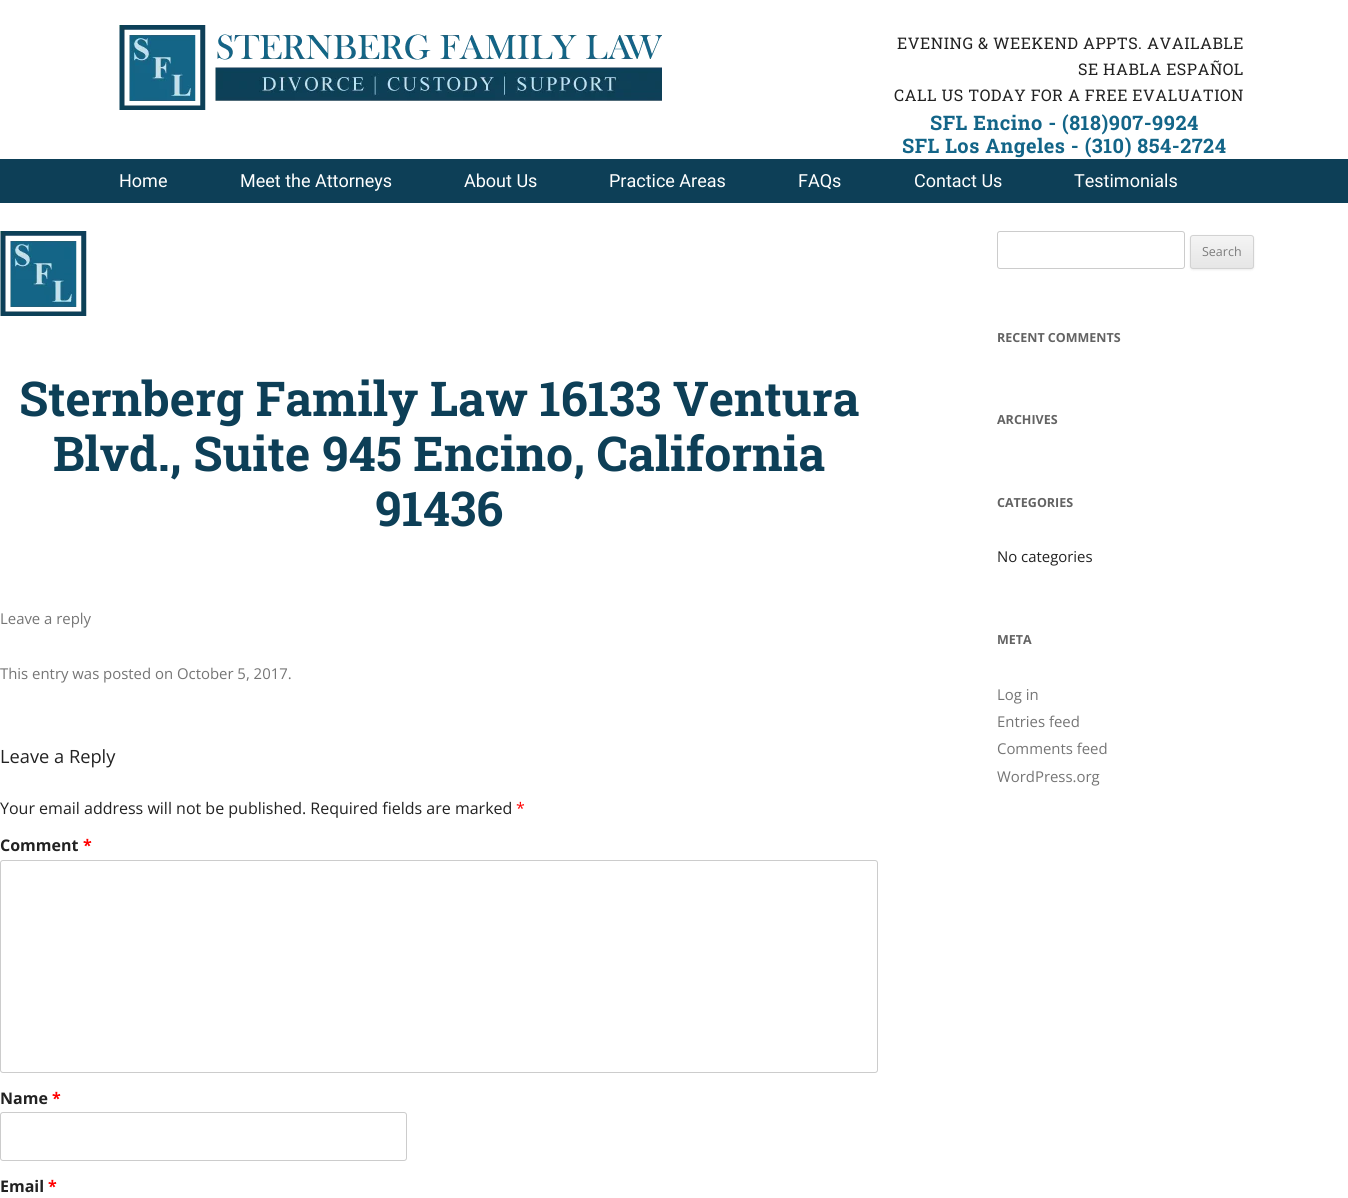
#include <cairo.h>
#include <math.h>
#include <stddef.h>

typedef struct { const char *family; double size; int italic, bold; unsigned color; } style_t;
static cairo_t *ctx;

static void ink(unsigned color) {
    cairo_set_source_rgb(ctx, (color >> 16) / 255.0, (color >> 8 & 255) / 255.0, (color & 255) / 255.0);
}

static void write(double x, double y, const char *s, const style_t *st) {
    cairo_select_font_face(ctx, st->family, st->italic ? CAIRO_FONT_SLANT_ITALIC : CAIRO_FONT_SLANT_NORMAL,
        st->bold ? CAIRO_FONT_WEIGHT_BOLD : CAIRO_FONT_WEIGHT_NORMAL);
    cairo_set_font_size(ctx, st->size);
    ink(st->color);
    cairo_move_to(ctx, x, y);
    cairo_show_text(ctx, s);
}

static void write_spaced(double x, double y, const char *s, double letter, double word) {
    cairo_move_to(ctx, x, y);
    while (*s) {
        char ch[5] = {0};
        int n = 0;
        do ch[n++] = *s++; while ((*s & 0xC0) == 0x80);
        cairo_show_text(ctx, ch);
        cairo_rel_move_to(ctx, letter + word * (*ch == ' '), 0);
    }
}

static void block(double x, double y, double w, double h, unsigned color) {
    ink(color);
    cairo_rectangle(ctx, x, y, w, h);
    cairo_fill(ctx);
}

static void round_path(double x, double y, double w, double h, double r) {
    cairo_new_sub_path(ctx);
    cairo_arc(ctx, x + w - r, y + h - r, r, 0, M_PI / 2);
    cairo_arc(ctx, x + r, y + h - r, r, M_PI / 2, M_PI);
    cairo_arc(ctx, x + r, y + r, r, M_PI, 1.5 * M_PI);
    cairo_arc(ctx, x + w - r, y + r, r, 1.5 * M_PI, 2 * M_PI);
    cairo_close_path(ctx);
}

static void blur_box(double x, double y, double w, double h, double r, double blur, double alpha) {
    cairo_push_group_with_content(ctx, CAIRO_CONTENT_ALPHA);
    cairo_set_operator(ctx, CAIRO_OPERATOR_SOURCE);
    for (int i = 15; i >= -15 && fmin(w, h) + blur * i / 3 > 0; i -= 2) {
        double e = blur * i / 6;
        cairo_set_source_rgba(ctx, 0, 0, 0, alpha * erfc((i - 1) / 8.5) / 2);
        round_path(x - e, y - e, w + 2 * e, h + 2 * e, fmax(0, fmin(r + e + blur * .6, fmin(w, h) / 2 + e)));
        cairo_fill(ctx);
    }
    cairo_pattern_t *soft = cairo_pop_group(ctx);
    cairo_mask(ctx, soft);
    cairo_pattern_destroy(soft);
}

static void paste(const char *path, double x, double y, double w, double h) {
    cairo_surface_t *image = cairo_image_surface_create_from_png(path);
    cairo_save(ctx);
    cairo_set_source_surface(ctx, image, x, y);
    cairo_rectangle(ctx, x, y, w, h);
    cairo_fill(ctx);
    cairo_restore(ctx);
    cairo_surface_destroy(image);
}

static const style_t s1 = {"Roboto", 18, 0, 0, 0xffffff};
static const style_t s2 = {"Roboto Slab", 48, 0, 1, 0x0d3f57};
static const style_t s3 = {"Open Sans", 14.9, 0, 0, 0x757575};
static const style_t s4 = {"Open Sans", 18.25, 0, 0, 0x222222};
static const style_t s5 = {"Open Sans", 16, 0, 0, 0x222222};
static const style_t s6 = {"Open Sans", 16, 0, 0, 0xff0000};
static const style_t s7 = {"Open Sans", 16, 0, 1, 0x222222};
static const style_t s8 = {"Open Sans", 16, 0, 1, 0xff0000};
static const style_t s9 = {"Open Sans", 12.5, 0, 0, 0x7c7c7c};
static const style_t s10 = {"Open Sans", 12.5, 0, 1, 0x636363};
static const style_t s11 = {"Open Sans", 14.9, 0, 0, 0x222222};

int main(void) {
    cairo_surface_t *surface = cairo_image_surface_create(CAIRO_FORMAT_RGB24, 1348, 1198);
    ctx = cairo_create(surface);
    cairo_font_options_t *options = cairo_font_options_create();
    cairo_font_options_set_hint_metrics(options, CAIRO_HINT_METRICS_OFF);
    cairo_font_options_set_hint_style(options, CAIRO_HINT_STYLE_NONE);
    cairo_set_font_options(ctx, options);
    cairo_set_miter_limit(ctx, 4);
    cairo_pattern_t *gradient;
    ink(0xffffff);
    cairo_paint(ctx);
    paste("pic1.png", 119, 25, 543, 85);
    cairo_select_font_face(ctx, "Roboto Slab", CAIRO_FONT_SLANT_NORMAL, CAIRO_FONT_WEIGHT_NORMAL);
    cairo_set_font_size(ctx, 16);
    ink(0x222222);
    write_spaced(897, 49, "EVENING & WEEKEND APPTS. AVAILABLE", 0.5, 0);
    write_spaced(1078, 75, "SE HABLA ESPAÑOL", 0.5, 0);
    write_spaced(894, 101, "CALL US TODAY FOR A FREE EVALUATION", 0.5, 0);
    cairo_select_font_face(ctx, "Roboto Slab", CAIRO_FONT_SLANT_NORMAL, CAIRO_FONT_WEIGHT_BOLD);
    cairo_set_font_size(ctx, 20);
    ink(0x136588);
    write_spaced(930, 130, "SFL Encino - (818)907-9924", 0.5, 0);
    write_spaced(902, 153, "SFL Los Angeles - (310) 854-2724", 0.5, 0);
    block(0, 159, 1348, 44, 0x0d3f57);
    write(119, 187, "Home", &s1);
    write(240, 187, "Meet the Attorneys", &s1);
    write(464, 187, "About Us", &s1);
    write(609, 187, "Practice Areas", &s1);
    write(798, 187, "FAQs", &s1);
    write(914, 187, "Contact Us", &s1);
    write(1074, 187, "Testimonials", &s1);
    paste("pic2.png", 0, 231, 87, 85);
    write(19, 416, "Sternberg Family Law 16133 Ventura", &s2);
    write(53, 471, "Blvd., Suite 945 Encino, California", &s2);
    write(375, 526, "91436", &s2);
    write(0, 624, "Leave a reply", &s3);
    write(0, 679, "This entry was posted on October 5, 2017.", &s3);
    write(0, 763, "Leave a Reply", &s4);
    write(0, 814, "Your email address will not be published. Required fields are marked", &s5);
    write(516, 814, "*", &s6);
    write(0, 851, "Comment", &s7);
    write(83, 851, "*", &s8);
    round_path(0.5, 860.5, 877, 212, 2.5);
    ink(0xcccccc);
    cairo_set_line_width(ctx, 1);
    cairo_stroke(ctx);
    write(0, 1104, "Name", &s7);
    write(52, 1104, "*", &s8);
    round_path(0.5, 1112.5, 406, 48, 2.5);
    ink(0xcccccc);
    cairo_stroke(ctx);
    write(0, 1192, "Email", &s7);
    write(48, 1192, "*", &s8);
    round_path(997.5, 231.5, 187, 37, 2.5);
    ink(0xcccccc);
    cairo_stroke(ctx);
    ink(0x404040);
    blur_box(1190, 236, 64, 34, 3, 1, 0.1);
    cairo_save(ctx);
    round_path(1190, 235, 64, 34, 3);
    cairo_clip(ctx);
    gradient = cairo_pattern_create_linear(1222, 236, 1222, 268);
    cairo_pattern_add_color_stop_rgba(gradient, 0, 0.957, 0.957, 0.957, 1);
    cairo_pattern_add_color_stop_rgba(gradient, 1, 0.902, 0.902, 0.902, 1);
    cairo_set_source(ctx, gradient);
    cairo_pattern_destroy(gradient);
    cairo_rectangle(ctx, 1190, 236, 64, 32);
    cairo_fill(ctx);
    cairo_restore(ctx);
    round_path(1190.5, 235.5, 63, 33, 2.5);
    ink(0xd2d2d2);
    cairo_stroke(ctx);
    write(1202, 256, "Search", &s9);
    write(997, 342, "RECENT COMMENTS", &s10);
    write(997, 424, "ARCHIVES", &s10);
    write(997, 507, "CATEGORIES", &s10);
    write(997, 562, "No categories", &s11);
    write(997, 644, "META", &s10);
    write(997, 700, "Log in", &s3);
    write(997, 727, "Entries feed", &s3);
    write(997, 754, "Comments feed", &s3);
    write(997, 782, "WordPress.org", &s3);
    cairo_surface_write_to_png(surface, "screenshot.png");
    cairo_font_options_destroy(options);
    cairo_destroy(ctx);
    cairo_surface_destroy(surface);
    return 0;
}
